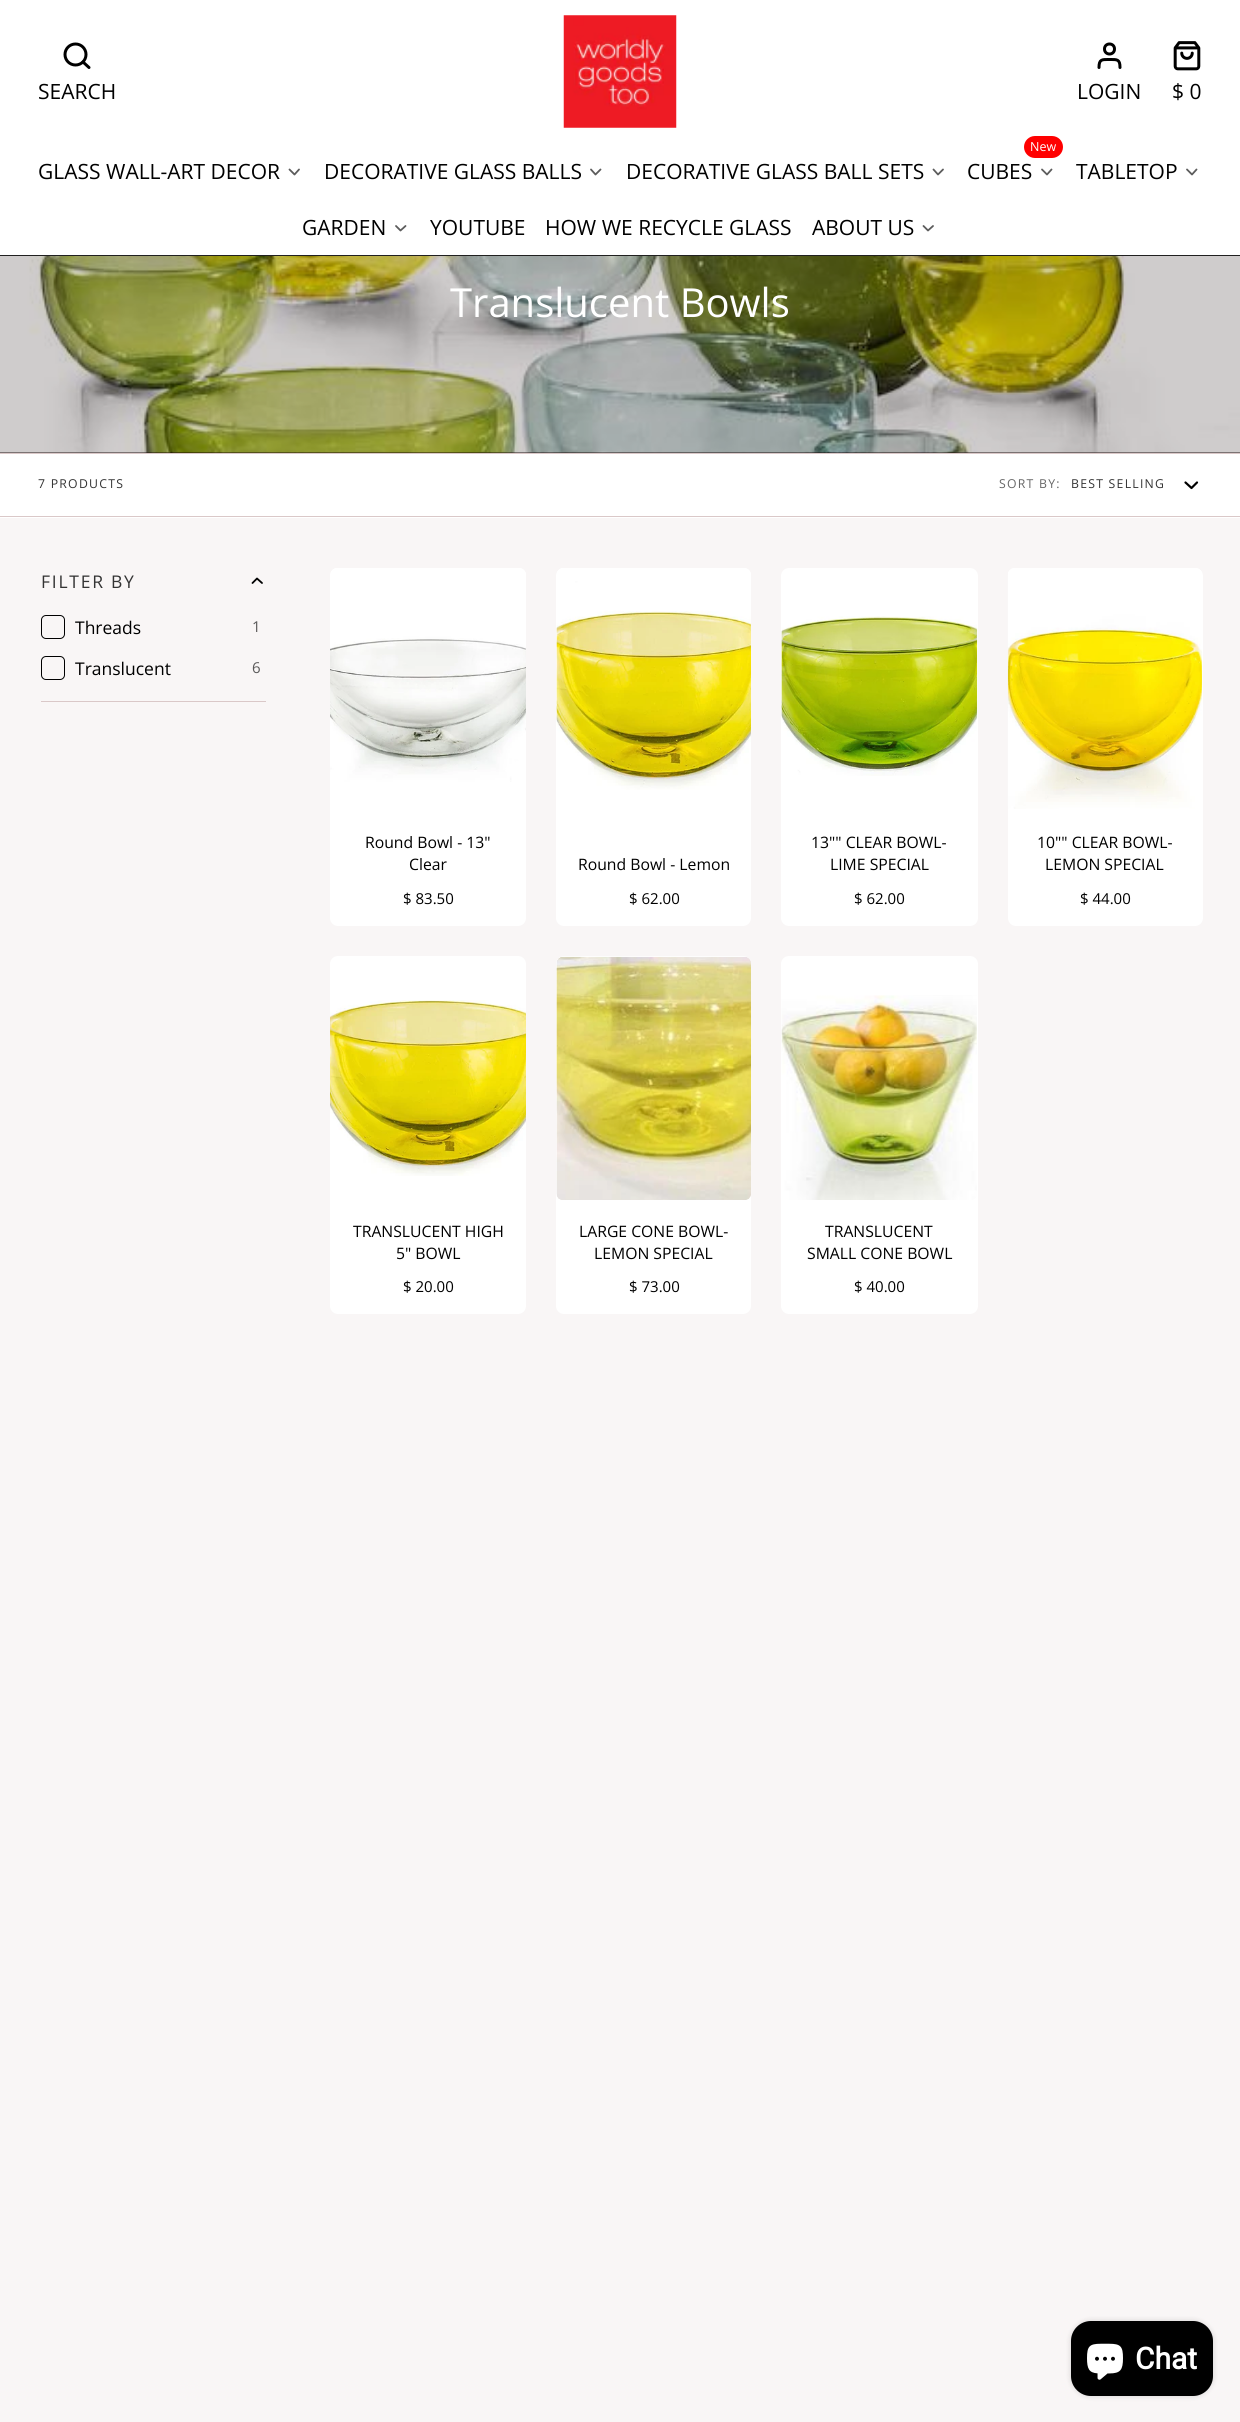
#include <cairo.h>
#include <math.h>
#include <stddef.h>

typedef struct { const char *family; double size; int italic, bold; unsigned color; } style_t;
static cairo_t *ctx;

static void ink(unsigned color) {
    cairo_set_source_rgb(ctx, (color >> 16) / 255.0, (color >> 8 & 255) / 255.0, (color & 255) / 255.0);
}

static void write(double x, double y, const char *s, const style_t *st) {
    cairo_select_font_face(ctx, st->family, st->italic ? CAIRO_FONT_SLANT_ITALIC : CAIRO_FONT_SLANT_NORMAL,
        st->bold ? CAIRO_FONT_WEIGHT_BOLD : CAIRO_FONT_WEIGHT_NORMAL);
    cairo_set_font_size(ctx, st->size);
    ink(st->color);
    cairo_move_to(ctx, x, y);
    cairo_show_text(ctx, s);
}

static void write_spaced(double x, double y, const char *s, double letter, double word) {
    cairo_move_to(ctx, x, y);
    while (*s) {
        char ch[5] = {0};
        int n = 0;
        do ch[n++] = *s++; while ((*s & 0xC0) == 0x80);
        cairo_show_text(ctx, ch);
        cairo_rel_move_to(ctx, letter + word * (*ch == ' '), 0);
    }
}

static void block(double x, double y, double w, double h, unsigned color) {
    ink(color);
    cairo_rectangle(ctx, x, y, w, h);
    cairo_fill(ctx);
}

static void round_path(double x, double y, double w, double h, double r) {
    cairo_new_sub_path(ctx);
    cairo_arc(ctx, x + w - r, y + h - r, r, 0, M_PI / 2);
    cairo_arc(ctx, x + r, y + h - r, r, M_PI / 2, M_PI);
    cairo_arc(ctx, x + r, y + r, r, M_PI, 1.5 * M_PI);
    cairo_arc(ctx, x + w - r, y + r, r, 1.5 * M_PI, 2 * M_PI);
    cairo_close_path(ctx);
}

static void blur_box(double x, double y, double w, double h, double r, double blur, double alpha) {
    cairo_push_group_with_content(ctx, CAIRO_CONTENT_ALPHA);
    cairo_set_operator(ctx, CAIRO_OPERATOR_SOURCE);
    for (int i = 15; i >= -15 && fmin(w, h) + blur * i / 3 > 0; i -= 2) {
        double e = blur * i / 6;
        cairo_set_source_rgba(ctx, 0, 0, 0, alpha * erfc((i - 1) / 8.5) / 2);
        round_path(x - e, y - e, w + 2 * e, h + 2 * e, fmax(0, fmin(r + e + blur * .6, fmin(w, h) / 2 + e)));
        cairo_fill(ctx);
    }
    cairo_pattern_t *soft = cairo_pop_group(ctx);
    cairo_mask(ctx, soft);
    cairo_pattern_destroy(soft);
}

static void paste(const char *path, double x, double y, double w, double h) {
    cairo_surface_t *image = cairo_image_surface_create_from_png(path);
    cairo_save(ctx);
    cairo_set_source_surface(ctx, image, x, y);
    cairo_rectangle(ctx, x, y, w, h);
    cairo_fill(ctx);
    cairo_restore(ctx);
    cairo_surface_destroy(image);
}

static const style_t s1 = {"Open Sans", 21, 0, 0, 0x000000};
static const style_t s2 = {"Open Sans", 12.5, 0, 0, 0xffffff};
static const style_t s3 = {"Open Sans", 40, 0, 0, 0xffffff};
static const style_t s4 = {"Open Sans", 17.5, 0, 0, 0x000000};
static const style_t s5 = {"Open Sans", 15, 0, 0, 0x5a5959};
static const style_t s6 = {"Open Sans", 15.75, 0, 0, 0x000000};
static const style_t s7 = {"Open Sans", 15, 0, 0, 0x000000};
static const style_t s8 = {"Roboto", 30, 0, 1, 0xffffff};

int main(void) {
    cairo_surface_t *surface = cairo_image_surface_create(CAIRO_FORMAT_RGB24, 1240, 2422);
    ctx = cairo_create(surface);
    cairo_font_options_t *options = cairo_font_options_create();
    cairo_font_options_set_hint_metrics(options, CAIRO_HINT_METRICS_OFF);
    cairo_font_options_set_hint_style(options, CAIRO_HINT_STYLE_NONE);
    cairo_set_font_options(ctx, options);
    cairo_set_miter_limit(ctx, 4);
    ink(0xf9f6f6);
    cairo_paint(ctx);
    block(0, 0, 1240, 255, 0xffffff);
    cairo_arc(ctx, 75.5, 54.5, 10.5, 0, 2 * M_PI);
    ink(0x000000);
    cairo_set_line_width(ctx, 3);
    cairo_stroke(ctx);
    cairo_new_path(ctx);
    cairo_move_to(ctx, 89, 67.5);
    cairo_line_to(ctx, 83, 62);
    cairo_set_line_cap(ctx, CAIRO_LINE_CAP_ROUND);
    cairo_set_line_join(ctx, CAIRO_LINE_JOIN_ROUND);
    cairo_stroke(ctx);
    write(38, 99, "SEARCH", &s1);
    paste("pic1.png", 563, 15, 114, 113);
    cairo_new_path(ctx);
    cairo_move_to(ctx, 1120, 67.5);
    cairo_curve_to(ctx, 1120, 59, 1117, 59.5, 1109.5, 59.5);
    cairo_curve_to(ctx, 1102, 59.5, 1099, 59, 1099, 67.5);
    cairo_stroke(ctx);
    cairo_arc(ctx, 1109.5, 49, 5, 0, 2 * M_PI);
    cairo_set_line_cap(ctx, CAIRO_LINE_CAP_BUTT);
    cairo_set_line_join(ctx, CAIRO_LINE_JOIN_MITER);
    cairo_stroke(ctx);
    write(1077, 99, "LOGIN", &s1);
    paste("pic2.png", 1173, 41, 28, 30);
    write(1172, 99, "$ 0", &s1);
    block(0, 255, 1240, 1, 0x202020);
    write(38, 179, "GLASS WALL-ART DECOR", &s1);
    cairo_new_path(ctx);
    cairo_move_to(ctx, 289.5, 169.5);
    cairo_line_to(ctx, 294.5, 174.5);
    cairo_line_to(ctx, 299, 169.5);
    ink(0x5c5c5c);
    cairo_set_line_width(ctx, 1.8);
    cairo_set_line_cap(ctx, CAIRO_LINE_CAP_ROUND);
    cairo_set_line_join(ctx, CAIRO_LINE_JOIN_ROUND);
    cairo_stroke(ctx);
    write(324, 179, "DECORATIVE GLASS BALLS", &s1);
    cairo_new_path(ctx);
    cairo_move_to(ctx, 591, 169.5);
    cairo_line_to(ctx, 595.5, 174.5);
    cairo_line_to(ctx, 600.5, 169.5);
    ink(0x5c5c5c);
    cairo_stroke(ctx);
    write(626, 179, "DECORATIVE GLASS BALL SETS", &s1);
    cairo_new_path(ctx);
    cairo_move_to(ctx, 933.5, 169.5);
    cairo_line_to(ctx, 938, 174.5);
    cairo_line_to(ctx, 943, 169.5);
    ink(0x5c5c5c);
    cairo_stroke(ctx);
    ink(0xff0000);
    round_path(1024, 136, 39, 22, 11);
    cairo_fill(ctx);
    write(1030, 151, "New", &s2);
    write(967, 179, "CUBES", &s1);
    cairo_new_path(ctx);
    cairo_move_to(ctx, 1042, 169.5);
    cairo_line_to(ctx, 1047, 174.5);
    cairo_line_to(ctx, 1051.5, 169.5);
    ink(0x5c5c5c);
    cairo_stroke(ctx);
    write(1076, 179, "TABLETOP", &s1);
    cairo_new_path(ctx);
    cairo_move_to(ctx, 1187, 169.5);
    cairo_line_to(ctx, 1192, 174.5);
    cairo_line_to(ctx, 1196.5, 169.5);
    ink(0x5c5c5c);
    cairo_stroke(ctx);
    write(302, 235, "GARDEN", &s1);
    cairo_new_path(ctx);
    cairo_move_to(ctx, 396, 226);
    cairo_line_to(ctx, 400.5, 230.5);
    cairo_line_to(ctx, 405.5, 226);
    ink(0x5c5c5c);
    cairo_stroke(ctx);
    write(430, 235, "YOUTUBE", &s1);
    write(545, 235, "HOW WE RECYCLE GLASS", &s1);
    write(812, 235, "ABOUT US", &s1);
    cairo_new_path(ctx);
    cairo_move_to(ctx, 923.5, 226);
    cairo_line_to(ctx, 928, 230.5);
    cairo_line_to(ctx, 933, 226);
    ink(0x5c5c5c);
    cairo_stroke(ctx);
    block(0, 452, 1240, 1, 0x0f0101);
    paste("pic3.png", 0, 256, 1240, 197);
    write(450, 317, "Translucent Bowls", &s3);
    block(0, 454, 1240, 64, 0xffffff);
    block(0, 453, 1240, 1, 0xdac8c8);
    block(0, 516, 1240, 1, 0xdac8c8);
    cairo_set_font_size(ctx, 12.25);
    ink(0x333333);
    write_spaced(38, 488, "7 PRODUCTS", 1.25, 0);
    ink(0x666666);
    write_spaced(999, 488, "SORT BY:", 1.25, 0);
    ink(0x333333);
    write_spaced(1071, 488, "BEST SELLING", 1.25, 0);
    cairo_new_path(ctx);
    cairo_move_to(ctx, 1185.5, 482.5);
    cairo_line_to(ctx, 1191.5, 488);
    cairo_line_to(ctx, 1197, 482.5);
    ink(0x000000);
    cairo_set_line_width(ctx, 2.2);
    cairo_stroke(ctx);
    block(41, 701, 225, 1, 0xdac8c8);
    cairo_set_font_size(ctx, 17.5);
    ink(0x333333);
    write_spaced(41, 588, "FILTER BY", 1.75, 0);
    cairo_new_path(ctx);
    cairo_move_to(ctx, 262, 583);
    cairo_line_to(ctx, 257, 578.5);
    cairo_line_to(ctx, 252.5, 583);
    ink(0x000000);
    cairo_set_line_width(ctx, 1.8);
    cairo_stroke(ctx);
    round_path(41.5, 615.5, 23, 23, 4.5);
    cairo_set_line_width(ctx, 1);
    cairo_set_line_cap(ctx, CAIRO_LINE_CAP_BUTT);
    cairo_set_line_join(ctx, CAIRO_LINE_JOIN_MITER);
    cairo_stroke(ctx);
    write(75, 634, "Threads", &s4);
    write(252, 632, "1", &s5);
    round_path(41.5, 656.5, 23, 23, 4.5);
    ink(0x000000);
    cairo_stroke(ctx);
    write(75, 675, "Translucent", &s4);
    write(252, 673, "6", &s5);
    ink(0xffffff);
    round_path(330, 568, 196, 358, 8);
    cairo_fill(ctx);
    paste("pic4.png", 330, 568, 196, 214);
    write(365, 848, "Round Bowl - 13\"", &s6);
    write(409, 870, "Clear", &s6);
    write(403, 904, "$ 83.50", &s7);
    ink(0xffffff);
    round_path(556, 568, 195, 358, 8);
    cairo_fill(ctx);
    paste("pic5.png", 556, 568, 195, 222);
    write(578, 870, "Round Bowl - Lemon", &s6);
    write(629, 904, "$ 62.00", &s7);
    ink(0xffffff);
    round_path(781, 568, 197, 358, 8);
    cairo_fill(ctx);
    paste("pic6.png", 781, 616, 197, 160);
    write(811, 848, "13\"\" CLEAR BOWL-", &s6);
    write(830, 870, "LIME SPECIAL", &s6);
    write(854, 904, "$ 62.00", &s7);
    ink(0xffffff);
    round_path(1008, 568, 195, 358, 8);
    cairo_fill(ctx);
    paste("pic7.png", 1007, 568, 196, 241);
    write(1037, 848, "10\"\" CLEAR BOWL-", &s6);
    write(1045, 870, "LEMON SPECIAL", &s6);
    write(1080, 904, "$ 44.00", &s7);
    ink(0xffffff);
    round_path(330, 956, 196, 358, 8);
    cairo_fill(ctx);
    paste("pic8.png", 330, 1000, 196, 176);
    write(353, 1237, "TRANSLUCENT HIGH", &s6);
    write(396, 1259, "5\" BOWL", &s6);
    write(403, 1292, "$ 20.00", &s7);
    ink(0xffffff);
    round_path(556, 956, 195, 358, 8);
    cairo_fill(ctx);
    paste("pic9.png", 556, 956, 195, 244);
    write(579, 1237, "LARGE CONE BOWL-", &s6);
    write(594, 1259, "LEMON SPECIAL", &s6);
    write(629, 1292, "$ 73.00", &s7);
    ink(0xffffff);
    round_path(781, 956, 197, 358, 8);
    cairo_fill(ctx);
    paste("pic10.png", 781, 995, 196, 205);
    write(825, 1237, "TRANSLUCENT", &s6);
    write(807, 1259, "SMALL CONE BOWL", &s6);
    write(854, 1292, "$ 40.00", &s7);
    ink(0x000000);
    blur_box(1071, 2321, 142, 75, 20, 3, 0.15);
    ink(0x000000);
    round_path(1071, 2321, 142, 75, 20);
    cairo_fill(ctx);
    paste("pic11.png", 1087, 2343, 36, 37);
    write(1135, 2369, "Chat", &s8);
    cairo_surface_write_to_png(surface, "screenshot.png");
    cairo_font_options_destroy(options);
    cairo_destroy(ctx);
    cairo_surface_destroy(surface);
    return 0;
}
